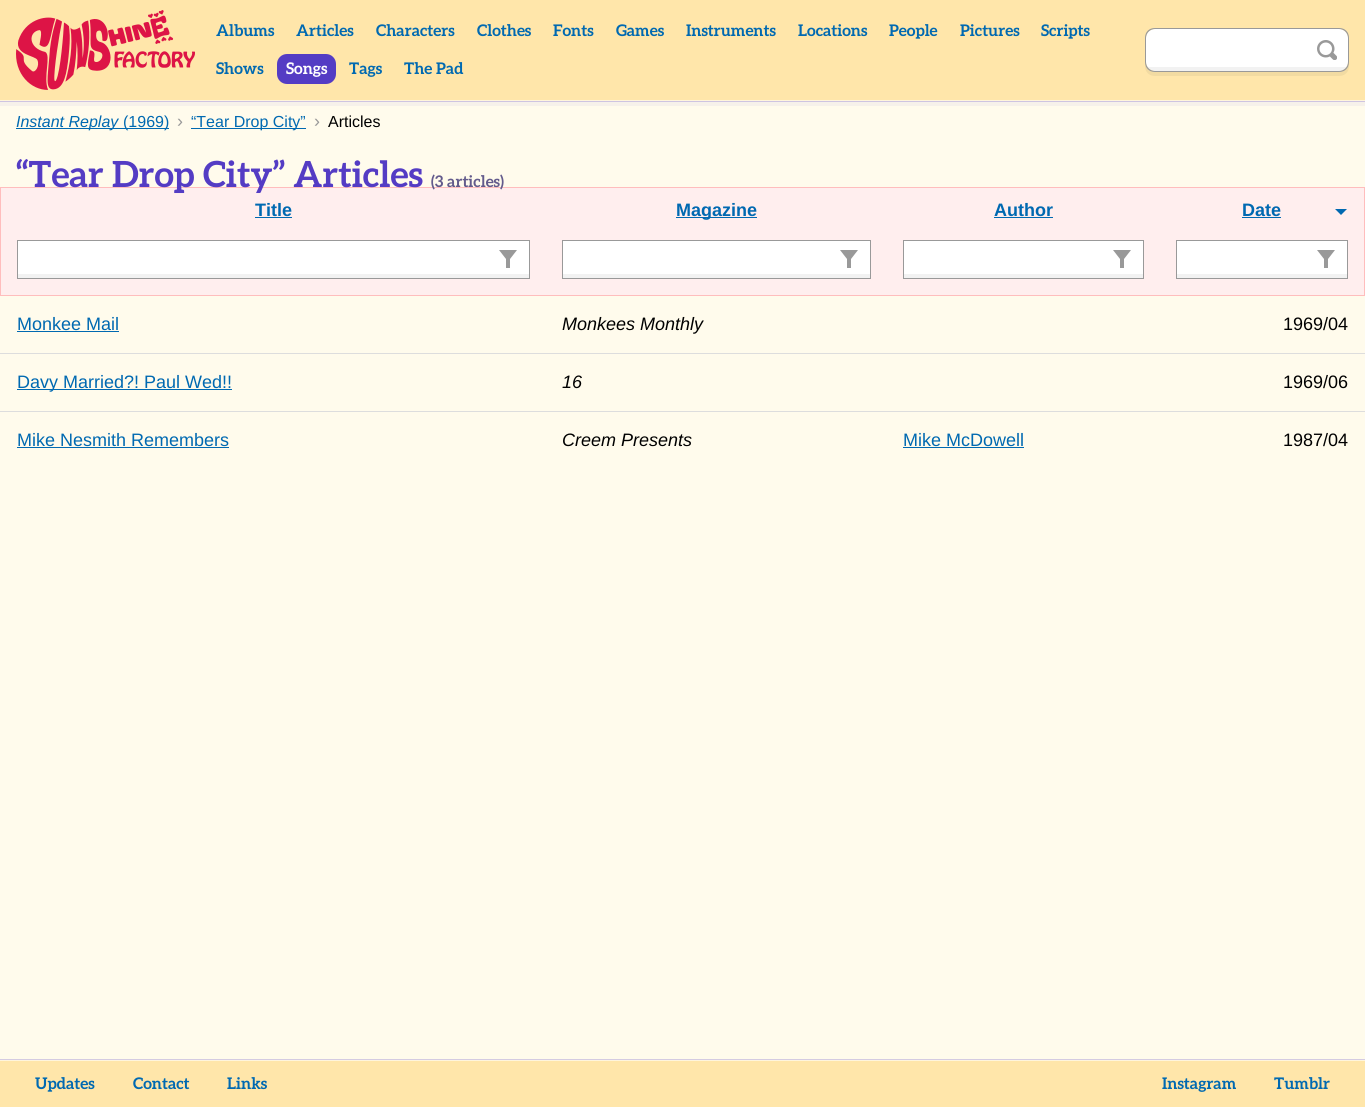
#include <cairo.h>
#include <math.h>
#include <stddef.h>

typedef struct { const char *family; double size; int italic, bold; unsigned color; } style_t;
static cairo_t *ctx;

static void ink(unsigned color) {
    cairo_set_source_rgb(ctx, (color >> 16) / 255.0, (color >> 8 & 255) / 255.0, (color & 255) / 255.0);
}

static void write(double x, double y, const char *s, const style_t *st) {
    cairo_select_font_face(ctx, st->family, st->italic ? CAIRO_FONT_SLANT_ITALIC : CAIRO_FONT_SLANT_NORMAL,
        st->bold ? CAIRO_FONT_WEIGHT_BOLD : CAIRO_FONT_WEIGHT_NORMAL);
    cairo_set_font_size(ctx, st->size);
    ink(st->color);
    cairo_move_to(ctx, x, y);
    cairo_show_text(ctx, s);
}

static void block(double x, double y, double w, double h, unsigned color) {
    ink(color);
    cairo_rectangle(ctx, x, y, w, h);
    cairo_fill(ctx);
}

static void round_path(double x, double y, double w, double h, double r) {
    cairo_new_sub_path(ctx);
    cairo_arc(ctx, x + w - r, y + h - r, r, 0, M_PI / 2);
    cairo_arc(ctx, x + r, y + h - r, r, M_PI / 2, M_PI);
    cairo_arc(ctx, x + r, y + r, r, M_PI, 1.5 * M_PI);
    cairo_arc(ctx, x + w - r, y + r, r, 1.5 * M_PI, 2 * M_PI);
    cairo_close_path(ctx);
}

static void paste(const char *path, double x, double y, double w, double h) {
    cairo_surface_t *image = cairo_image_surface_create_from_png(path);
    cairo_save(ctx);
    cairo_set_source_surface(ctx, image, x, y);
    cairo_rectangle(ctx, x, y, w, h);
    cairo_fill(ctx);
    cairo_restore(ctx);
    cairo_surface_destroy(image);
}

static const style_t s1 = {"Aleo", 16, 0, 1, 0x0069b1};
static const style_t s2 = {"Aleo", 16, 0, 1, 0xffffff};
static const style_t s3 = {"Liberation Sans", 16, 1, 0, 0x0069b1};
static const style_t s4 = {"Liberation Sans", 16, 0, 0, 0x0069b1};
static const style_t s5 = {"Liberation Sans", 18, 0, 0, 0x999999};
static const style_t s6 = {"Liberation Sans", 16, 0, 0, 0x000000};
static const style_t s7 = {"Aleo", 36, 0, 1, 0x543cc4};
static const style_t s8 = {"Aleo", 16, 0, 1, 0x635b8c};
static const style_t s9 = {"Liberation Sans", 18, 0, 1, 0x0069b1};
static const style_t s10 = {"Liberation Sans", 18, 0, 0, 0x0069b1};
static const style_t s11 = {"Liberation Sans", 18, 1, 0, 0x000000};
static const style_t s12 = {"Liberation Sans", 18, 0, 0, 0x000000};

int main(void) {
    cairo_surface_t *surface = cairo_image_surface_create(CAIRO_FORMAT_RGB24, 1365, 1107);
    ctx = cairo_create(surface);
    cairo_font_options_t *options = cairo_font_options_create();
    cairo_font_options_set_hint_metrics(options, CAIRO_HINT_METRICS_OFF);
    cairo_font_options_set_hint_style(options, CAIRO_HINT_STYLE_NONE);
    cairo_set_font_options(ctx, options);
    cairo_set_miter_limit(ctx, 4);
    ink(0xfffbec);
    cairo_paint(ctx);
    cairo_rectangle(ctx, -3, -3, 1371, 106);
    ink(0xf6f1ea);
    cairo_set_line_width(ctx, 6);
    cairo_stroke(ctx);
    cairo_rectangle(ctx, -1, -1, 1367, 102);
    ink(0xcec4e1);
    cairo_set_line_width(ctx, 2);
    cairo_stroke(ctx);
    cairo_rectangle(ctx, -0.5, -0.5, 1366, 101);
    ink(0xfff5dc);
    cairo_set_line_width(ctx, 1);
    cairo_stroke(ctx);
    block(0, 0, 1365, 100, 0xffe6aa);
    paste("pic1.png", 16, 10, 179, 80);
    write(216, 36, "Albums", &s1);
    write(296, 36, "Articles", &s1);
    write(376, 36, "Characters", &s1);
    write(477, 36, "Clothes", &s1);
    write(553, 36, "Fonts", &s1);
    write(616, 36, "Games", &s1);
    write(686, 36, "Instruments", &s1);
    write(798, 36, "Locations", &s1);
    write(889, 36, "People", &s1);
    write(960, 36, "Pictures", &s1);
    write(1041, 36, "Scripts", &s1);
    write(216, 74, "Shows", &s1);
    ink(0x543cc4);
    round_path(277, 54, 59, 30, 10);
    cairo_fill(ctx);
    write(286, 74, "Songs", &s2);
    write(349, 74, "Tags", &s1);
    write(404, 74, "The Pad", &s1);
    ink(0xf2dba2);
    cairo_new_path(ctx);
    cairo_move_to(ctx, 1145, 62);
    cairo_line_to(ctx, 1145, 66);
    cairo_curve_to(ctx, 1145, 72, 1149, 76, 1155, 76);
    cairo_line_to(ctx, 1339, 76);
    cairo_curve_to(ctx, 1345, 76, 1349, 72, 1349, 66);
    cairo_line_to(ctx, 1349, 62);
    cairo_curve_to(ctx, 1349, 68, 1345, 72, 1339, 72);
    cairo_line_to(ctx, 1155, 72);
    cairo_curve_to(ctx, 1149, 72, 1145, 68, 1145, 62);
    cairo_close_path(ctx);
    cairo_fill(ctx);
    cairo_save(ctx);
    cairo_new_path(ctx);
    cairo_move_to(ctx, 1155, 29);
    cairo_line_to(ctx, 1305, 29);
    cairo_line_to(ctx, 1305, 71);
    cairo_line_to(ctx, 1155, 71);
    cairo_curve_to(ctx, 1150, 71, 1146, 67, 1146, 62);
    cairo_line_to(ctx, 1146, 38);
    cairo_curve_to(ctx, 1146, 33, 1150, 29, 1155, 29);
    cairo_close_path(ctx);
    cairo_clip(ctx);
    block(1146, 67, 159, 4, 0xf2f2f2);
    ink(0xffffff);
    cairo_new_path(ctx);
    cairo_move_to(ctx, 1155, 29);
    cairo_line_to(ctx, 1305, 29);
    cairo_line_to(ctx, 1305, 67);
    cairo_line_to(ctx, 1146, 67);
    cairo_line_to(ctx, 1146, 38);
    cairo_curve_to(ctx, 1146, 33, 1150, 29, 1155, 29);
    cairo_close_path(ctx);
    cairo_fill(ctx);
    cairo_restore(ctx);
    ink(0x999999);
    cairo_set_fill_rule(ctx, CAIRO_FILL_RULE_EVEN_ODD);
    cairo_new_path(ctx);
    cairo_move_to(ctx, 1155, 28);
    cairo_line_to(ctx, 1305, 28);
    cairo_line_to(ctx, 1305, 72);
    cairo_line_to(ctx, 1155, 72);
    cairo_curve_to(ctx, 1149, 72, 1145, 68, 1145, 62);
    cairo_line_to(ctx, 1145, 38);
    cairo_curve_to(ctx, 1145, 32, 1149, 28, 1155, 28);
    cairo_close_path(ctx);
    cairo_move_to(ctx, 1155, 29);
    cairo_line_to(ctx, 1305, 29);
    cairo_line_to(ctx, 1305, 71);
    cairo_line_to(ctx, 1155, 71);
    cairo_curve_to(ctx, 1150, 71, 1146, 67, 1146, 62);
    cairo_line_to(ctx, 1146, 38);
    cairo_curve_to(ctx, 1146, 33, 1150, 29, 1155, 29);
    cairo_close_path(ctx);
    cairo_fill(ctx);
    cairo_save(ctx);
    cairo_set_fill_rule(ctx, CAIRO_FILL_RULE_WINDING);
    cairo_new_path(ctx);
    cairo_move_to(ctx, 1305, 29);
    cairo_line_to(ctx, 1339, 29);
    cairo_curve_to(ctx, 1344, 29, 1348, 33, 1348, 38);
    cairo_line_to(ctx, 1348, 62);
    cairo_curve_to(ctx, 1348, 67, 1344, 71, 1339, 71);
    cairo_line_to(ctx, 1305, 71);
    cairo_close_path(ctx);
    cairo_clip(ctx);
    block(1305, 67, 43, 4, 0xf2f2f2);
    ink(0xffffff);
    cairo_new_path(ctx);
    cairo_move_to(ctx, 1305, 29);
    cairo_line_to(ctx, 1339, 29);
    cairo_curve_to(ctx, 1344, 29, 1348, 33, 1348, 38);
    cairo_line_to(ctx, 1348, 67);
    cairo_line_to(ctx, 1305, 67);
    cairo_close_path(ctx);
    cairo_fill(ctx);
    cairo_restore(ctx);
    cairo_new_path(ctx);
    cairo_move_to(ctx, 1305, 28);
    cairo_line_to(ctx, 1339, 28);
    cairo_curve_to(ctx, 1345, 28, 1349, 32, 1349, 38);
    cairo_line_to(ctx, 1349, 62);
    cairo_curve_to(ctx, 1349, 68, 1345, 72, 1339, 72);
    cairo_line_to(ctx, 1305, 72);
    cairo_close_path(ctx);
    cairo_move_to(ctx, 1305, 29);
    cairo_line_to(ctx, 1339, 29);
    cairo_curve_to(ctx, 1344, 29, 1348, 33, 1348, 38);
    cairo_line_to(ctx, 1348, 62);
    cairo_curve_to(ctx, 1348, 67, 1344, 71, 1339, 71);
    cairo_line_to(ctx, 1305, 71);
    cairo_close_path(ctx);
    cairo_fill(ctx);
    paste("pic2.png", 1317, 40, 20, 20);
    block(16, 128, 102, 1, 0x0069b1);
    write(16, 127, "Instant Replay", &s3);
    block(118, 128, 51, 1, 0x0069b1);
    write(123, 127, "(1969)", &s4);
    write(177, 127, "›", &s5);
    block(191, 128, 115, 1, 0x0069b1);
    write(191, 127, "“Tear Drop City”", &s4);
    write(314, 127, "›", &s5);
    write(328, 127, "Articles", &s6);
    block(1, 188, 1363, 107, 0xffeeee);
    block(0, 187, 1365, 1, 0xffbdbd);
    write(16, 187, "“Tear Drop City” Articles", &s7);
    write(431, 187, "(3 articles)", &s8);
    block(1364, 187, 1, 109, 0xffbdbd);
    block(0, 295, 1365, 1, 0xffbdbd);
    block(0, 187, 1, 109, 0xffbdbd);
    write(255, 216, "Title", &s9);
    block(255, 217, 37, 1, 0x0069b1);
    block(676, 217, 81, 1, 0x0069b1);
    write(676, 216, "Magazine", &s9);
    write(994, 216, "Author", &s9);
    block(994, 217, 59, 1, 0x0069b1);
    write(1242, 216, "Date", &s9);
    block(1242, 217, 39, 1, 0x0069b1);
    cairo_set_fill_rule(ctx, CAIRO_FILL_RULE_WINDING);
    cairo_new_path(ctx);
    cairo_move_to(ctx, 1335, 209);
    cairo_line_to(ctx, 1347, 209);
    cairo_line_to(ctx, 1341, 215);
    cairo_close_path(ctx);
    cairo_fill(ctx);
    block(18, 241, 511, 33, 0xffffff);
    block(17, 274, 513, 4, 0xf2f2f2);
    cairo_rectangle(ctx, 17.5, 240.5, 512, 38);
    ink(0x999999);
    cairo_stroke(ctx);
    cairo_new_path(ctx);
    cairo_move_to(ctx, 499, 250);
    cairo_line_to(ctx, 517, 250);
    cairo_line_to(ctx, 510, 259);
    cairo_line_to(ctx, 510, 268);
    cairo_line_to(ctx, 506, 268);
    cairo_line_to(ctx, 506, 259);
    cairo_close_path(ctx);
    cairo_fill(ctx);
    block(563, 241, 307, 33, 0xffffff);
    block(562, 274, 309, 4, 0xf2f2f2);
    cairo_rectangle(ctx, 562.5, 240.5, 308, 38);
    ink(0x999999);
    cairo_stroke(ctx);
    cairo_new_path(ctx);
    cairo_move_to(ctx, 840, 250);
    cairo_line_to(ctx, 858, 250);
    cairo_line_to(ctx, 851, 259);
    cairo_line_to(ctx, 851, 268);
    cairo_line_to(ctx, 847, 268);
    cairo_line_to(ctx, 847, 259);
    cairo_close_path(ctx);
    cairo_fill(ctx);
    block(904, 241, 239, 33, 0xffffff);
    block(903, 274, 241, 4, 0xf2f2f2);
    cairo_rectangle(ctx, 903.5, 240.5, 240, 38);
    ink(0x999999);
    cairo_stroke(ctx);
    cairo_new_path(ctx);
    cairo_move_to(ctx, 1113, 250);
    cairo_line_to(ctx, 1131, 250);
    cairo_line_to(ctx, 1124, 259);
    cairo_line_to(ctx, 1124, 268);
    cairo_line_to(ctx, 1120, 268);
    cairo_line_to(ctx, 1120, 259);
    cairo_close_path(ctx);
    cairo_fill(ctx);
    block(1177, 241, 170, 33, 0xffffff);
    block(1176, 274, 172, 4, 0xf2f2f2);
    cairo_rectangle(ctx, 1176.5, 240.5, 171, 38);
    ink(0x999999);
    cairo_stroke(ctx);
    cairo_new_path(ctx);
    cairo_move_to(ctx, 1317, 250);
    cairo_line_to(ctx, 1335, 250);
    cairo_line_to(ctx, 1328, 259);
    cairo_line_to(ctx, 1328, 268);
    cairo_line_to(ctx, 1324, 268);
    cairo_line_to(ctx, 1324, 259);
    cairo_close_path(ctx);
    cairo_fill(ctx);
    write(17, 330, "Monkee Mail", &s10);
    block(17, 331, 102, 1, 0x0069b1);
    write(562, 330, "Monkees Monthly", &s11);
    write(1283, 330, "1969/04", &s12);
    block(17, 389, 215, 1, 0x0069b1);
    write(17, 388, "Davy Married?! Paul Wed!!", &s10);
    write(562, 388, "16", &s11);
    block(0, 353, 1365, 1, 0xdddddd);
    write(1283, 388, "1969/06", &s12);
    write(17, 446, "Mike Nesmith Remembers", &s10);
    block(17, 447, 212, 1, 0x0069b1);
    write(562, 446, "Creem Presents", &s11);
    write(903, 446, "Mike McDowell", &s10);
    block(903, 447, 121, 1, 0x0069b1);
    block(0, 411, 1365, 1, 0xdddddd);
    write(1283, 446, "1987/04", &s12);
    cairo_rectangle(ctx, -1, 1060, 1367, 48);
    ink(0xd4cbe2);
    cairo_set_line_width(ctx, 2);
    cairo_stroke(ctx);
    cairo_rectangle(ctx, -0.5, 1060.5, 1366, 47);
    ink(0xfff5dc);
    cairo_set_line_width(ctx, 1);
    cairo_stroke(ctx);
    block(0, 1061, 1365, 46, 0xffe6aa);
    write(35, 1089, "Updates", &s1);
    write(133, 1089, "Contact", &s1);
    write(227, 1089, "Links", &s1);
    write(1162, 1089, "Instagram", &s1);
    write(1274, 1089, "Tumblr", &s1);
    cairo_surface_write_to_png(surface, "screenshot.png");
    cairo_font_options_destroy(options);
    cairo_destroy(ctx);
    cairo_surface_destroy(surface);
    return 0;
}
